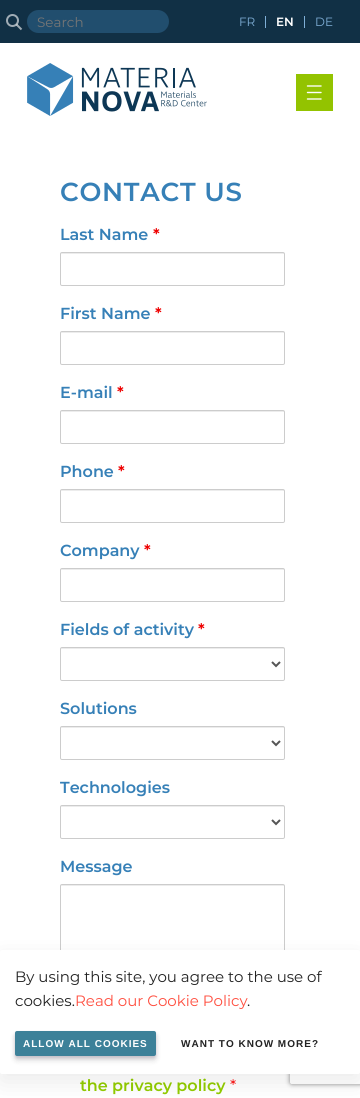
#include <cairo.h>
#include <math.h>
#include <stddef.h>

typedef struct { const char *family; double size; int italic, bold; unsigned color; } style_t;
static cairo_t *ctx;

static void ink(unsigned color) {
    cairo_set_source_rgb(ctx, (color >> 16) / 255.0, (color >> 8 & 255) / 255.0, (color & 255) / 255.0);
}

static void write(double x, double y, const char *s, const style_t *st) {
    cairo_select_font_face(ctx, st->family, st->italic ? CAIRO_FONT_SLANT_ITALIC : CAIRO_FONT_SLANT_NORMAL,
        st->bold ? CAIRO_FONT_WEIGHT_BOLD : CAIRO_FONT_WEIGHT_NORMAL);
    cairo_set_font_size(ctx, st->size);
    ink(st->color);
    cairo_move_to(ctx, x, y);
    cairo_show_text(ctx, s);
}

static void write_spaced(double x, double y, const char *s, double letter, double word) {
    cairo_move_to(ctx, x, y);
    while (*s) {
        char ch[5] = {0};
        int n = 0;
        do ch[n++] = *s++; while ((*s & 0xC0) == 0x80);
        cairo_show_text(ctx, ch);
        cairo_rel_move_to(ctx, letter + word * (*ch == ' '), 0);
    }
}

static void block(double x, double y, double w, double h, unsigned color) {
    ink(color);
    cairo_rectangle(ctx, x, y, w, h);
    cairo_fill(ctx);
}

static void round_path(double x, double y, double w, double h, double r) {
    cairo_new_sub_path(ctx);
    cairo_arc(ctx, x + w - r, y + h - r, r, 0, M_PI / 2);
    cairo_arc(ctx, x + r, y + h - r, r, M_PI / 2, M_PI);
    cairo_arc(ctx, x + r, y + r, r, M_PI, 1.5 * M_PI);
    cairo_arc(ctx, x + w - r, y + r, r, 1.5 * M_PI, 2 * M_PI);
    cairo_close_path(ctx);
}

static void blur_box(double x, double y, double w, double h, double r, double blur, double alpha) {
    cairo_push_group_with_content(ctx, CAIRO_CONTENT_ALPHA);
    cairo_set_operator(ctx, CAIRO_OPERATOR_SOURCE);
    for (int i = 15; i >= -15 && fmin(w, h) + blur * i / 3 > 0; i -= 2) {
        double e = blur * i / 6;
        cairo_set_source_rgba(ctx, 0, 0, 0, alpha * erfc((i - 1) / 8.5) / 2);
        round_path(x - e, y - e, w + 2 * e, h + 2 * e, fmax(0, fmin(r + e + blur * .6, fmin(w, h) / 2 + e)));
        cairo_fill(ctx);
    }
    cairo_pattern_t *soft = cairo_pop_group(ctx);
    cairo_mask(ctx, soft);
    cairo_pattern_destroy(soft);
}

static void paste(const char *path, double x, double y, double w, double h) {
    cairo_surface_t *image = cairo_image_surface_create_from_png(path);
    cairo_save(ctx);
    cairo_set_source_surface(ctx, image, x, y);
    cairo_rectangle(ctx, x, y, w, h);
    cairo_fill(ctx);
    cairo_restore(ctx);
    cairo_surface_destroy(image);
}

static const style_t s1 = {"Montserrat", 13.5, 0, 0, 0x757575};
static const style_t s2 = {"Montserrat", 12, 0, 0, 0x7fafd7};
static const style_t s3 = {"Montserrat SemiBold", 12, 0, 0, 0xffffff};
static const style_t s4 = {"Montserrat SemiBold", 16, 0, 0, 0x3680b7};
static const style_t s5 = {"Montserrat SemiBold", 16, 0, 0, 0xee0000};
static const style_t s6 = {"Montserrat SemiBold", 16, 0, 0, 0x92cc00};
static const style_t s7 = {"Montserrat", 16, 0, 0, 0xff0000};
static const style_t s8 = {"Montserrat", 15, 0, 0, 0x222222};
static const style_t s9 = {"Montserrat", 15, 0, 0, 0xff4f40};

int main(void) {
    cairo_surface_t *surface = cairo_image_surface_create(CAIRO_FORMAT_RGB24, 360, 1098);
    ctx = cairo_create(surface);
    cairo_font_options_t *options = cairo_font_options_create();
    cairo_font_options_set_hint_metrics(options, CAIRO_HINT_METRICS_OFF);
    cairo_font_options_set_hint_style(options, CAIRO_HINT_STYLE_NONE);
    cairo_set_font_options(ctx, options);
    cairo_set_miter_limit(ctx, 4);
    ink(0xffffff);
    cairo_paint(ctx);
    block(0, 0, 360, 43, 0x113045);
    ink(0x214e6e);
    round_path(27, 10, 142, 23, 11.5);
    cairo_fill(ctx);
    cairo_arc(ctx, 12.5, 20.5, 5.5, 0, 2 * M_PI);
    ink(0xa0acb5);
    cairo_stroke(ctx);
    cairo_new_path(ctx);
    cairo_move_to(ctx, 21.5, 29.5);
    cairo_line_to(ctx, 16.5, 24.5);
    cairo_set_source_rgba(ctx, 1, 1, 1, 0.6);
    cairo_stroke(ctx);
    write(37, 27, "Search", &s1);
    write(239, 26, "FR", &s2);
    block(265, 16, 1, 12, 0x7fafd7);
    write(276, 26, "EN", &s3);
    block(304, 16, 1, 12, 0x7fafd7);
    write(315, 26, "DE", &s2);
    paste("pic1.png", 27, 63, 180, 53);
    block(296, 74, 37, 37, 0x93c300);
    cairo_new_path(ctx);
    cairo_move_to(ctx, 307.5, 86);
    cairo_line_to(ctx, 321, 86);
    cairo_move_to(ctx, 307.5, 92.5);
    cairo_line_to(ctx, 321, 92.5);
    cairo_move_to(ctx, 307.5, 99);
    cairo_line_to(ctx, 321, 99);
    ink(0xffffff);
    cairo_set_line_width(ctx, 1.4);
    cairo_set_line_cap(ctx, CAIRO_LINE_CAP_ROUND);
    cairo_set_line_join(ctx, CAIRO_LINE_JOIN_ROUND);
    cairo_stroke(ctx);
    cairo_select_font_face(ctx, "Montserrat SemiBold", CAIRO_FONT_SLANT_NORMAL, CAIRO_FONT_WEIGHT_NORMAL);
    cairo_set_font_size(ctx, 26);
    ink(0x3680b7);
    write_spaced(60, 201, "CONTACT US", 0.75, 0);
    write(60, 240, "Last Name", &s4);
    write(153, 240, "*", &s5);
    ink(0xececec);
    cairo_new_path(ctx);
    cairo_move_to(ctx, 62, 254);
    cairo_line_to(ctx, 284, 254);
    cairo_line_to(ctx, 284, 255);
    cairo_line_to(ctx, 284, 253);
    cairo_line_to(ctx, 62, 253);
    cairo_curve_to(ctx, 61, 253, 61, 254, 61, 255);
    cairo_curve_to(ctx, 61, 254, 61, 254, 62, 254);
    cairo_close_path(ctx);
    cairo_fill(ctx);
    round_path(60.5, 252.5, 224, 33, 1.5);
    ink(0xcccccc);
    cairo_set_line_width(ctx, 1);
    cairo_set_line_cap(ctx, CAIRO_LINE_CAP_BUTT);
    cairo_set_line_join(ctx, CAIRO_LINE_JOIN_MITER);
    cairo_stroke(ctx);
    write(60, 319, "First Name", &s4);
    write(155, 319, "*", &s5);
    ink(0xececec);
    cairo_new_path(ctx);
    cairo_move_to(ctx, 62, 333);
    cairo_line_to(ctx, 284, 333);
    cairo_line_to(ctx, 284, 334);
    cairo_line_to(ctx, 284, 332);
    cairo_line_to(ctx, 62, 332);
    cairo_curve_to(ctx, 61, 332, 61, 333, 61, 334);
    cairo_curve_to(ctx, 61, 333, 61, 333, 62, 333);
    cairo_close_path(ctx);
    cairo_fill(ctx);
    round_path(60.5, 331.5, 224, 33, 1.5);
    ink(0xcccccc);
    cairo_stroke(ctx);
    write(60, 398, "E-mail", &s4);
    write(117, 398, "*", &s5);
    ink(0xececec);
    cairo_new_path(ctx);
    cairo_move_to(ctx, 62, 412);
    cairo_line_to(ctx, 284, 412);
    cairo_line_to(ctx, 284, 413);
    cairo_line_to(ctx, 284, 411);
    cairo_line_to(ctx, 62, 411);
    cairo_curve_to(ctx, 61, 411, 61, 412, 61, 413);
    cairo_curve_to(ctx, 61, 412, 61, 412, 62, 412);
    cairo_close_path(ctx);
    cairo_fill(ctx);
    round_path(60.5, 410.5, 224, 33, 1.5);
    ink(0xcccccc);
    cairo_stroke(ctx);
    write(60, 477, "Phone", &s4);
    write(118, 477, "*", &s5);
    ink(0xececec);
    cairo_new_path(ctx);
    cairo_move_to(ctx, 62, 491);
    cairo_line_to(ctx, 284, 491);
    cairo_line_to(ctx, 284, 492);
    cairo_line_to(ctx, 284, 490);
    cairo_line_to(ctx, 62, 490);
    cairo_curve_to(ctx, 61, 490, 61, 491, 61, 492);
    cairo_curve_to(ctx, 61, 491, 61, 491, 62, 491);
    cairo_close_path(ctx);
    cairo_fill(ctx);
    round_path(60.5, 489.5, 224, 33, 1.5);
    ink(0xcccccc);
    cairo_stroke(ctx);
    write(60, 556, "Company", &s4);
    write(144, 556, "*", &s5);
    ink(0xececec);
    cairo_new_path(ctx);
    cairo_move_to(ctx, 62, 570);
    cairo_line_to(ctx, 284, 570);
    cairo_line_to(ctx, 284, 571);
    cairo_line_to(ctx, 284, 569);
    cairo_line_to(ctx, 62, 569);
    cairo_curve_to(ctx, 61, 569, 61, 570, 61, 571);
    cairo_curve_to(ctx, 61, 570, 61, 570, 62, 570);
    cairo_close_path(ctx);
    cairo_fill(ctx);
    round_path(60.5, 568.5, 224, 33, 1.5);
    ink(0xcccccc);
    cairo_stroke(ctx);
    write(60, 635, "Fields of activity", &s4);
    write(198, 635, "*", &s5);
    ink(0xececec);
    cairo_new_path(ctx);
    cairo_move_to(ctx, 62, 649);
    cairo_line_to(ctx, 284, 649);
    cairo_line_to(ctx, 284, 650);
    cairo_line_to(ctx, 284, 648);
    cairo_line_to(ctx, 62, 648);
    cairo_curve_to(ctx, 61, 648, 61, 649, 61, 650);
    cairo_curve_to(ctx, 61, 649, 61, 649, 62, 649);
    cairo_close_path(ctx);
    cairo_fill(ctx);
    round_path(60.5, 647.5, 224, 33, 1.5);
    ink(0xcccccc);
    cairo_stroke(ctx);
    cairo_new_path(ctx);
    cairo_move_to(ctx, 272, 662);
    cairo_line_to(ctx, 276, 666);
    cairo_line_to(ctx, 280, 662);
    ink(0x555555);
    cairo_set_line_width(ctx, 2);
    cairo_stroke(ctx);
    write(60, 714, "Solutions", &s4);
    ink(0xececec);
    cairo_new_path(ctx);
    cairo_move_to(ctx, 62, 728);
    cairo_line_to(ctx, 284, 728);
    cairo_line_to(ctx, 284, 729);
    cairo_line_to(ctx, 284, 727);
    cairo_line_to(ctx, 62, 727);
    cairo_curve_to(ctx, 61, 727, 61, 728, 61, 729);
    cairo_curve_to(ctx, 61, 728, 61, 728, 62, 728);
    cairo_close_path(ctx);
    cairo_fill(ctx);
    round_path(60.5, 726.5, 224, 33, 1.5);
    ink(0xcccccc);
    cairo_set_line_width(ctx, 1);
    cairo_stroke(ctx);
    cairo_new_path(ctx);
    cairo_move_to(ctx, 272, 741);
    cairo_line_to(ctx, 276, 745);
    cairo_line_to(ctx, 280, 741);
    ink(0x555555);
    cairo_set_line_width(ctx, 2);
    cairo_stroke(ctx);
    write(60, 793, "Technologies", &s4);
    ink(0xececec);
    cairo_new_path(ctx);
    cairo_move_to(ctx, 62, 807);
    cairo_line_to(ctx, 284, 807);
    cairo_line_to(ctx, 284, 808);
    cairo_line_to(ctx, 284, 806);
    cairo_line_to(ctx, 62, 806);
    cairo_curve_to(ctx, 61, 806, 61, 807, 61, 808);
    cairo_curve_to(ctx, 61, 807, 61, 807, 62, 807);
    cairo_close_path(ctx);
    cairo_fill(ctx);
    round_path(60.5, 805.5, 224, 33, 1.5);
    ink(0xcccccc);
    cairo_set_line_width(ctx, 1);
    cairo_stroke(ctx);
    cairo_new_path(ctx);
    cairo_move_to(ctx, 272, 820);
    cairo_line_to(ctx, 276, 824);
    cairo_line_to(ctx, 280, 820);
    ink(0x555555);
    cairo_set_line_width(ctx, 2);
    cairo_stroke(ctx);
    write(60, 872, "Message", &s4);
    ink(0xececec);
    cairo_new_path(ctx);
    cairo_move_to(ctx, 62, 886);
    cairo_line_to(ctx, 284, 886);
    cairo_line_to(ctx, 284, 887);
    cairo_line_to(ctx, 284, 885);
    cairo_line_to(ctx, 62, 885);
    cairo_curve_to(ctx, 61, 885, 61, 886, 61, 887);
    cairo_curve_to(ctx, 61, 886, 61, 886, 62, 886);
    cairo_close_path(ctx);
    cairo_fill(ctx);
    round_path(60.5, 884.5, 224, 93, 1.5);
    ink(0xcccccc);
    cairo_set_line_width(ctx, 1);
    cairo_stroke(ctx);
    write(80, 1091, "the privacy policy", &s6);
    write(230, 1091, "*", &s7);
    ink(0x000000);
    blur_box(0, 958, 360, 124, 2, 12, 0.08);
    cairo_save(ctx);
    cairo_set_fill_rule(ctx, CAIRO_FILL_RULE_EVEN_ODD);
    cairo_new_path(ctx);
    cairo_move_to(ctx, 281, 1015);
    cairo_line_to(ctx, 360, 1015);
    cairo_line_to(ctx, 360, 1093);
    cairo_line_to(ctx, 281, 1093);
    cairo_close_path(ctx);
    cairo_move_to(ctx, 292, 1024);
    cairo_line_to(ctx, 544, 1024);
    cairo_curve_to(ctx, 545, 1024, 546, 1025, 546, 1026);
    cairo_line_to(ctx, 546, 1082);
    cairo_curve_to(ctx, 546, 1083, 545, 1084, 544, 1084);
    cairo_line_to(ctx, 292, 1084);
    cairo_curve_to(ctx, 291, 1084, 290, 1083, 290, 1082);
    cairo_line_to(ctx, 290, 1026);
    cairo_curve_to(ctx, 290, 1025, 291, 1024, 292, 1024);
    cairo_close_path(ctx);
    cairo_clip(ctx);
    ink(0x808080);
    blur_box(290, 1024, 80, 60, 2, 2.5, 1);
    cairo_restore(ctx);
    ink(0xffffff);
    round_path(0, 950, 360, 124, 2);
    cairo_fill(ctx);
    write(15, 982, "By using this site, you agree to the use of", &s8);
    write(15, 1006, "cookies.", &s8);
    write(75, 1006, "Read our Cookie Policy", &s9);
    write(247, 1006, ".", &s8);
    ink(0x300d4f);
    blur_box(15, 1033, 141, 25, 2, 1.5, 0.15);
    ink(0x000000);
    blur_box(15, 1035, 141, 25, 2, 3, 0.15);
    ink(0x3d8199);
    round_path(15, 1031, 141, 25, 2);
    cairo_fill(ctx);
    cairo_select_font_face(ctx, "Liberation Sans", CAIRO_FONT_SLANT_NORMAL, CAIRO_FONT_WEIGHT_BOLD);
    cairo_set_font_size(ctx, 10);
    ink(0xffffff);
    write_spaced(23, 1047, "ALLOW ALL COOKIES", 1, 0);
    ink(0x222222);
    write_spaced(181, 1047, "WANT TO KNOW MORE?", 1, 0);
    cairo_surface_write_to_png(surface, "screenshot.png");
    cairo_font_options_destroy(options);
    cairo_destroy(ctx);
    cairo_surface_destroy(surface);
    return 0;
}
